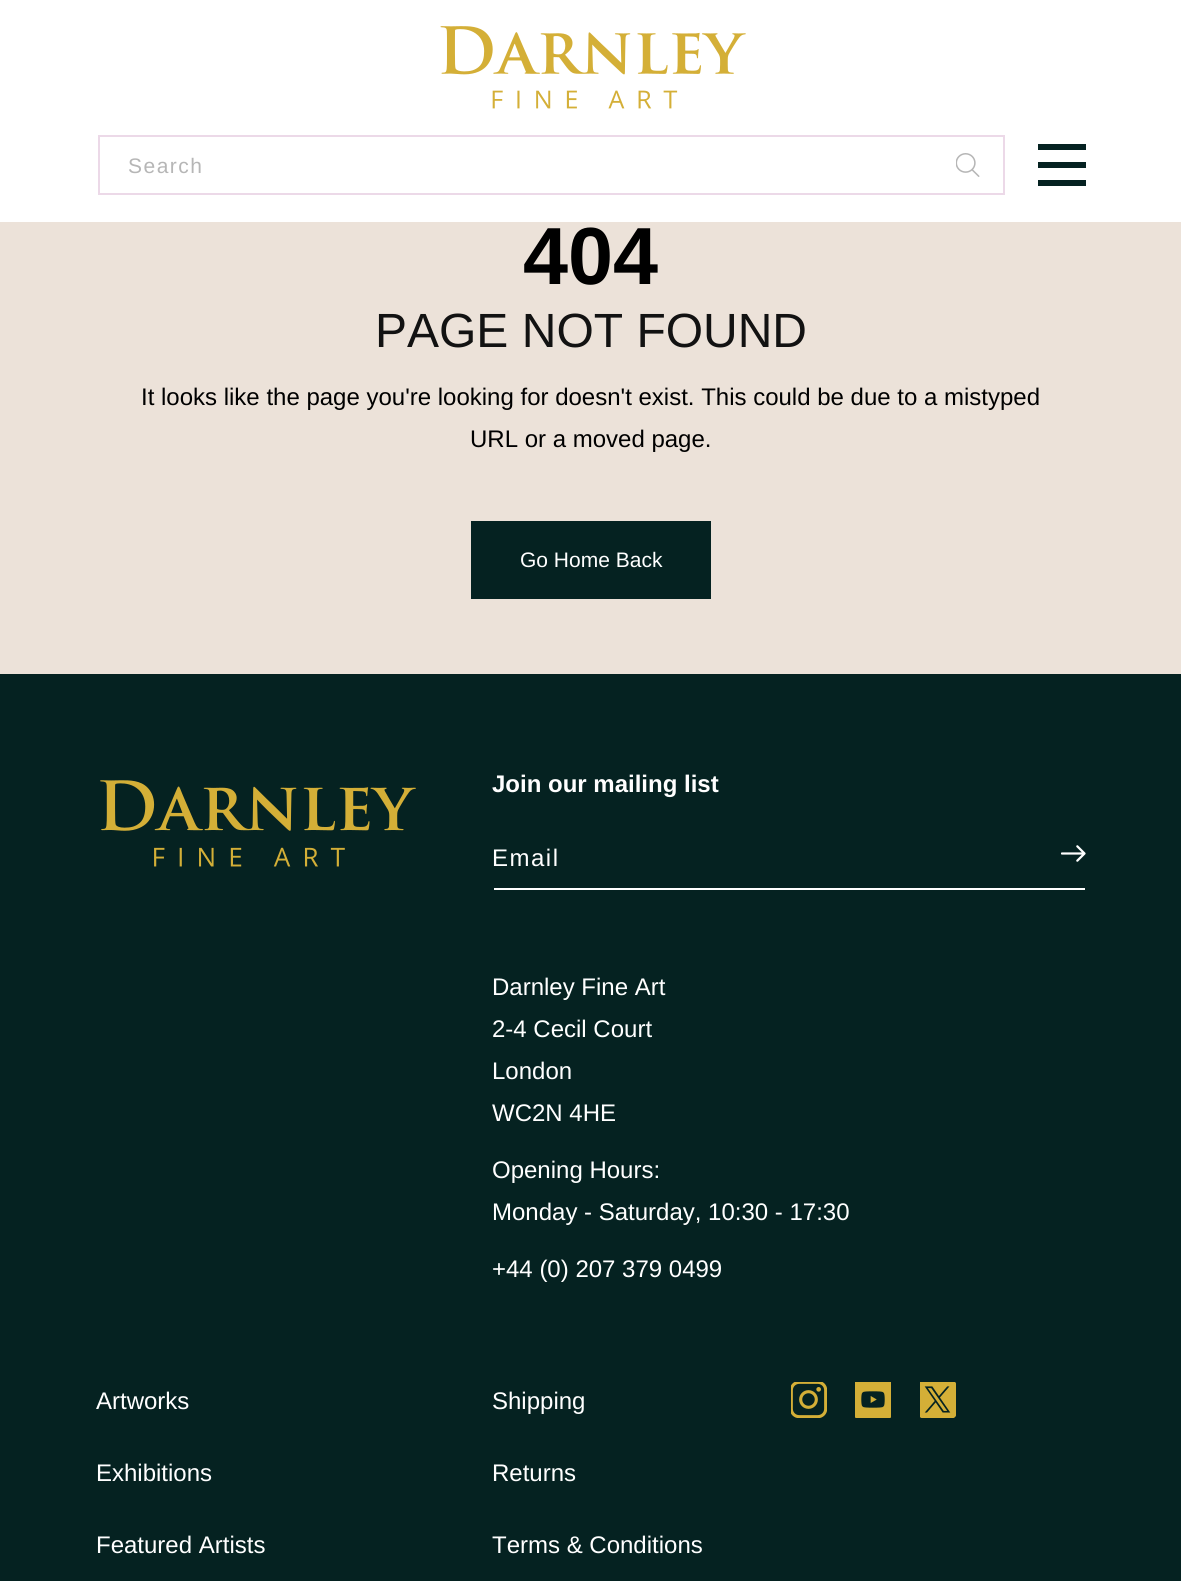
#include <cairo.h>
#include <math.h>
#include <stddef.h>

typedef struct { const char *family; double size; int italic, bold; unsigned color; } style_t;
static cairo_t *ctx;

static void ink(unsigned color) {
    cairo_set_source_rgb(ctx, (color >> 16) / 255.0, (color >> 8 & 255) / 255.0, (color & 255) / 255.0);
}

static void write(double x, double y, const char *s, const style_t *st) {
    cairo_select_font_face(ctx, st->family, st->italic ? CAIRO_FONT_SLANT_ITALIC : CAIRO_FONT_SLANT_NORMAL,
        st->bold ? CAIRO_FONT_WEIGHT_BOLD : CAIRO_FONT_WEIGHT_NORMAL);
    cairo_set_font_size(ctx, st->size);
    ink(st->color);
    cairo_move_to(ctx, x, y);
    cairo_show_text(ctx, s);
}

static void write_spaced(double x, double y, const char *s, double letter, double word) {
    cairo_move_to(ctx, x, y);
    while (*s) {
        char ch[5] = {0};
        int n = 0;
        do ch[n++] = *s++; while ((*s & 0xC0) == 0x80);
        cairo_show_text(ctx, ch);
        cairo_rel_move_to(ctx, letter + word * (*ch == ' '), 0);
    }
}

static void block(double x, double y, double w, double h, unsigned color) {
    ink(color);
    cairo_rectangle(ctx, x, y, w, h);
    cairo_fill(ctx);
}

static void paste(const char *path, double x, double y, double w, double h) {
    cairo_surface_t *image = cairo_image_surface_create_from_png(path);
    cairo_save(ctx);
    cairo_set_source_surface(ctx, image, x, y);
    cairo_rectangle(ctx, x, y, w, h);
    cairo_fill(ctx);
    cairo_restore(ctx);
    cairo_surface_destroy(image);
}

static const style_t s1 = {"Liberation Sans", 81, 0, 1, 0x000000};
static const style_t s2 = {"Liberation Sans", 48, 0, 0, 0x121212};
static const style_t s3 = {"Liberation Sans", 24, 0, 0, 0x000000};
static const style_t s4 = {"Liberation Sans", 21, 0, 0, 0xffffff};
static const style_t s5 = {"Liberation Sans", 24, 0, 1, 0xffffff};
static const style_t s6 = {"Liberation Sans", 24, 0, 0, 0xffffff};

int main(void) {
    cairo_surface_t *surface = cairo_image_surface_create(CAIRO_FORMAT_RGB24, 1181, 1581);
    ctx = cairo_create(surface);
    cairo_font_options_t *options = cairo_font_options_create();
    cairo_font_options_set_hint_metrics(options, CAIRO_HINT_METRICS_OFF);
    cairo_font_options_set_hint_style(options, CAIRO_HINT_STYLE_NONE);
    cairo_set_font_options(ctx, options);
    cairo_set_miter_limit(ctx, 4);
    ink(0xece2d9);
    cairo_paint(ctx);
    block(0, 0, 1181, 222, 0xffffff);
    paste("pic1.png", 440, 26, 306, 83);
    cairo_rectangle(ctx, 99, 136, 905, 58);
    ink(0xecd9e8);
    cairo_stroke(ctx);
    cairo_select_font_face(ctx, "Liberation Sans", CAIRO_FONT_SLANT_NORMAL, CAIRO_FONT_WEIGHT_NORMAL);
    cairo_set_font_size(ctx, 21);
    ink(0xb6b6b6);
    write_spaced(128, 173, "Search", 1.5, 0);
    paste("pic2.png", 956, 153, 24, 24);
    block(1038, 144, 48, 6, 0x052221);
    block(1038, 162, 48, 6, 0x052221);
    block(1038, 180, 48, 6, 0x052221);
    write(523, 284, "404", &s1);
    write(375, 347, "PAGE NOT FOUND", &s2);
    write(141, 405, "It looks like the page you're looking for doesn't exist. This could be due to a mistyped", &s3);
    write(470, 447, "URL or a moved page.", &s3);
    block(471, 521, 240, 78, 0x052221);
    write(520, 567, "Go Home Back", &s4);
    block(0, 674, 1181, 907, 0x052221);
    paste("pic3.png", 100, 780, 316, 87);
    write(492, 792, "Join our mailing list", &s5);
    cairo_select_font_face(ctx, "Liberation Sans", CAIRO_FONT_SLANT_NORMAL, CAIRO_FONT_WEIGHT_NORMAL);
    write_spaced(492, 866, "Email", 1.5, 0);
    paste("pic4.png", 1061, 845, 25, 17);
    block(494, 888, 591, 2, 0xffffff);
    write(492, 995, "Darnley Fine Art", &s6);
    write(492, 1037, "2-4 Cecil Court", &s6);
    write(492, 1079, "London", &s6);
    write(492, 1121, "WC2N 4HE", &s6);
    write(492, 1178, "Opening Hours:", &s6);
    write(492, 1220, "Monday - Saturday, 10:30 - 17:30", &s6);
    write(492, 1277, "+44 (0) 207 379 0499", &s6);
    write(96, 1409, "Artworks", &s6);
    write(96, 1481, "Exhibitions", &s6);
    write(96, 1553, "Featured Artists", &s6);
    write(492, 1409, "Shipping", &s6);
    write(492, 1481, "Returns", &s6);
    write(492, 1553, "Terms & Conditions", &s6);
    paste("pic5.png", 791, 1382, 36, 36);
    paste("pic6.png", 855, 1382, 36, 36);
    paste("pic7.png", 920, 1382, 36, 36);
    cairo_surface_write_to_png(surface, "screenshot.png");
    cairo_font_options_destroy(options);
    cairo_destroy(ctx);
    cairo_surface_destroy(surface);
    return 0;
}
